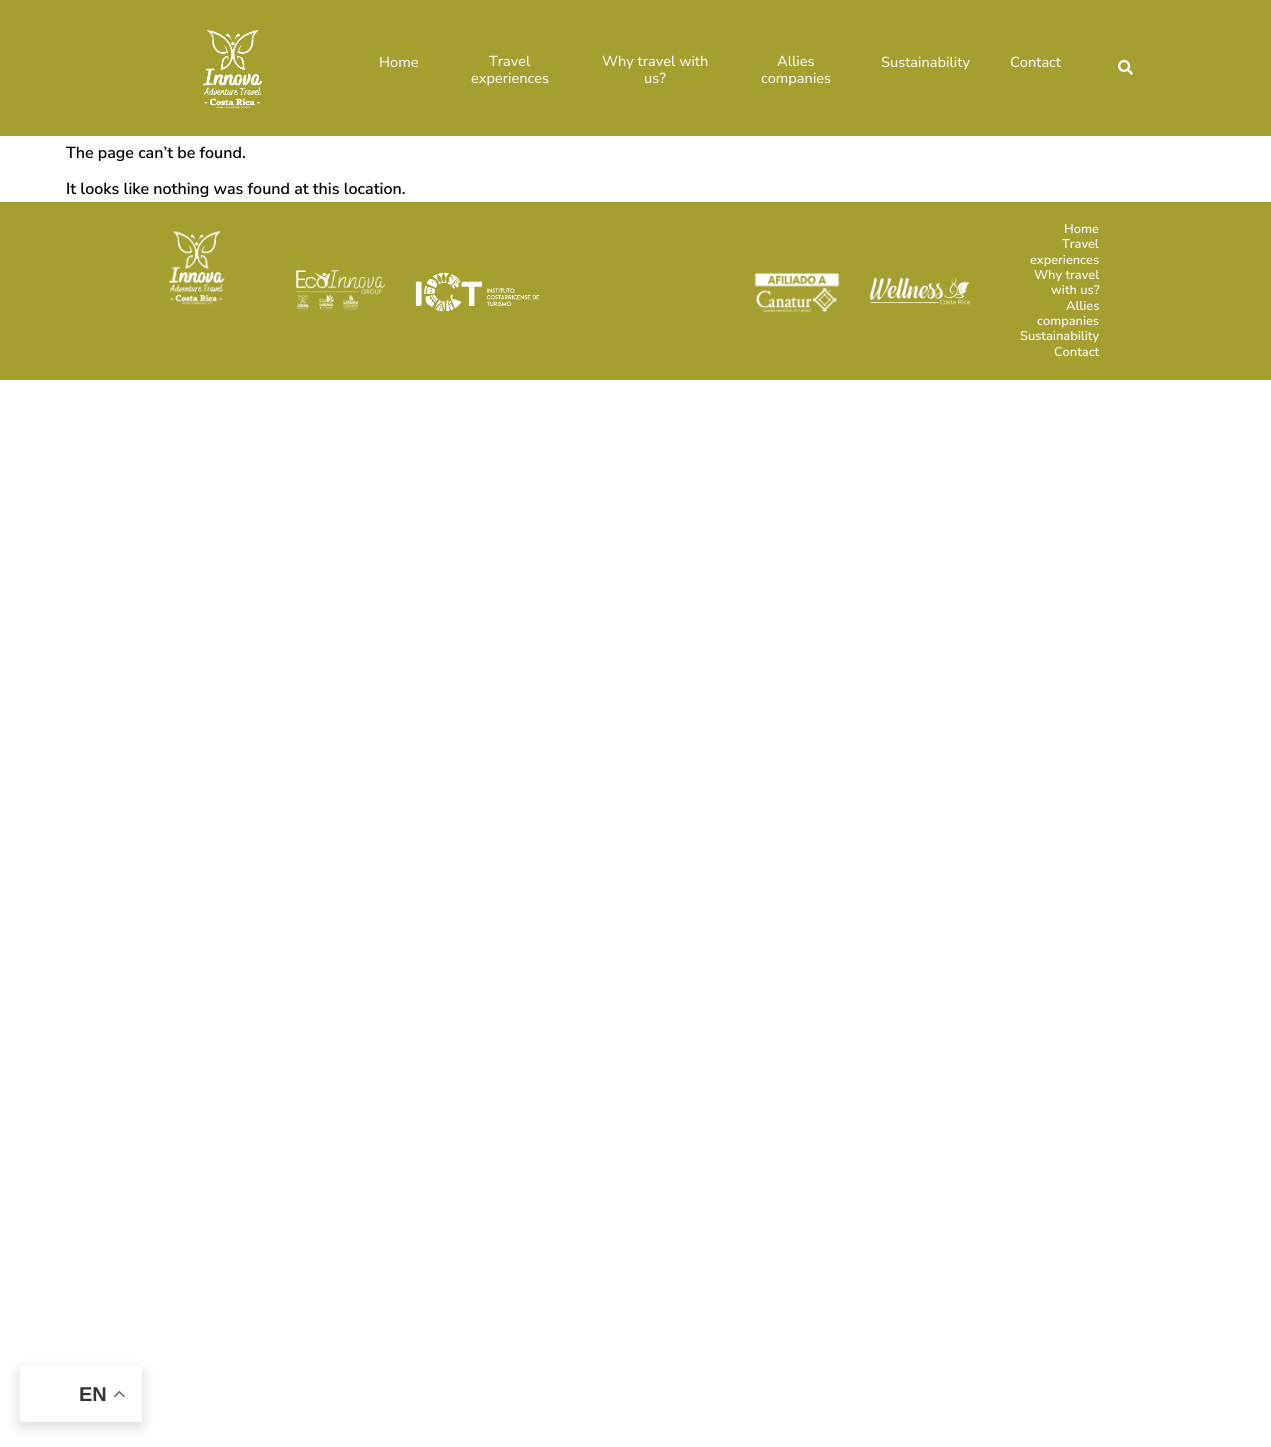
#include <cairo.h>
#include <math.h>
#include <stddef.h>

typedef struct { const char *family; double size; int italic, bold; unsigned color; } style_t;
static cairo_t *ctx;

static void ink(unsigned color) {
    cairo_set_source_rgb(ctx, (color >> 16) / 255.0, (color >> 8 & 255) / 255.0, (color & 255) / 255.0);
}

static void write(double x, double y, const char *s, const style_t *st) {
    cairo_select_font_face(ctx, st->family, st->italic ? CAIRO_FONT_SLANT_ITALIC : CAIRO_FONT_SLANT_NORMAL,
        st->bold ? CAIRO_FONT_WEIGHT_BOLD : CAIRO_FONT_WEIGHT_NORMAL);
    cairo_set_font_size(ctx, st->size);
    ink(st->color);
    cairo_move_to(ctx, x, y);
    cairo_show_text(ctx, s);
}

static void block(double x, double y, double w, double h, unsigned color) {
    ink(color);
    cairo_rectangle(ctx, x, y, w, h);
    cairo_fill(ctx);
}

static void round_path(double x, double y, double w, double h, double r) {
    cairo_new_sub_path(ctx);
    cairo_arc(ctx, x + w - r, y + h - r, r, 0, M_PI / 2);
    cairo_arc(ctx, x + r, y + h - r, r, M_PI / 2, M_PI);
    cairo_arc(ctx, x + r, y + r, r, M_PI, 1.5 * M_PI);
    cairo_arc(ctx, x + w - r, y + r, r, 1.5 * M_PI, 2 * M_PI);
    cairo_close_path(ctx);
}

static void blur_box(double x, double y, double w, double h, double r, double blur, double alpha) {
    cairo_push_group_with_content(ctx, CAIRO_CONTENT_ALPHA);
    cairo_set_operator(ctx, CAIRO_OPERATOR_SOURCE);
    for (int i = 15; i >= -15 && fmin(w, h) + blur * i / 3 > 0; i -= 2) {
        double e = blur * i / 6;
        cairo_set_source_rgba(ctx, 0, 0, 0, alpha * erfc((i - 1) / 8.5) / 2);
        round_path(x - e, y - e, w + 2 * e, h + 2 * e, fmax(0, fmin(r + e + blur * .6, fmin(w, h) / 2 + e)));
        cairo_fill(ctx);
    }
    cairo_pattern_t *soft = cairo_pop_group(ctx);
    cairo_mask(ctx, soft);
    cairo_pattern_destroy(soft);
}

static void paste(const char *path, double x, double y, double w, double h) {
    cairo_surface_t *image = cairo_image_surface_create_from_png(path);
    cairo_save(ctx);
    cairo_set_source_surface(ctx, image, x, y);
    cairo_rectangle(ctx, x, y, w, h);
    cairo_fill(ctx);
    cairo_restore(ctx);
    cairo_surface_destroy(image);
}

static const style_t s1 = {"Nunito Sans Medium", 14.5, 0, 0, 0xf7f7f7};
static const style_t s2 = {"Nunito Sans SemiBold", 16, 0, 0, 0x000000};
static const style_t s3 = {"Nunito Sans SemiBold", 12.75, 0, 0, 0xf7f7f7};
static const style_t s4 = {"Liberation Sans", 20, 0, 1, 0x333333};

int main(void) {
    cairo_surface_t *surface = cairo_image_surface_create(CAIRO_FORMAT_RGB24, 1271, 1447);
    ctx = cairo_create(surface);
    cairo_font_options_t *options = cairo_font_options_create();
    cairo_font_options_set_hint_metrics(options, CAIRO_HINT_METRICS_OFF);
    cairo_font_options_set_hint_style(options, CAIRO_HINT_STYLE_NONE);
    cairo_set_font_options(ctx, options);
    cairo_set_miter_limit(ctx, 4);
    ink(0xffffff);
    cairo_paint(ctx);
    block(0, 0, 1271, 136, 0xa49f2e);
    paste("pic1.png", 203, 30, 60, 79);
    write(379, 67, "Home", &s1);
    write(489, 66, "Travel", &s1);
    write(471, 83, "experiences", &s1);
    write(602, 66, "Why travel with", &s1);
    write(644, 83, "us?", &s1);
    write(777, 66, "Allies", &s1);
    write(761, 83, "companies", &s1);
    write(881, 67, "Sustainability", &s1);
    write(1010, 67, "Contact", &s1);
    paste("pic2.png", 1118, 59, 15, 16);
    write(66, 158, "The page can’t be found.", &s2);
    write(66, 194, "It looks like nothing was found at this location.", &s2);
    block(0, 202, 1271, 178, 0xa49f2e);
    paste("pic3.png", 168, 231, 57, 74);
    paste("pic4.png", 296, 269, 90, 42);
    paste("pic5.png", 415, 272, 125, 40);
    paste("pic6.png", 754, 272, 86, 41);
    paste("pic7.png", 869, 277, 102, 28);
    write(1064, 233, "Home", &s3);
    write(1062, 248, "Travel", &s3);
    write(1030, 264, "experiences", &s3);
    write(1034, 279, "Why travel", &s3);
    write(1051, 294, "with us?", &s3);
    write(1066, 310, "Allies", &s3);
    write(1037, 325, "companies", &s3);
    write(1020, 340, "Sustainability", &s3);
    write(1054, 356, "Contact", &s3);
    ink(0x000000);
    blur_box(20, 1371, 122, 56, 2, 7.5, 0.15);
    ink(0xffffff);
    round_path(20, 1366, 122, 56, 2);
    cairo_fill(ctx);
    write(79, 1401, "EN", &s4);
    paste("pic8.png", 114, 1391, 11, 7);
    cairo_surface_write_to_png(surface, "screenshot.png");
    cairo_font_options_destroy(options);
    cairo_destroy(ctx);
    cairo_surface_destroy(surface);
    return 0;
}
